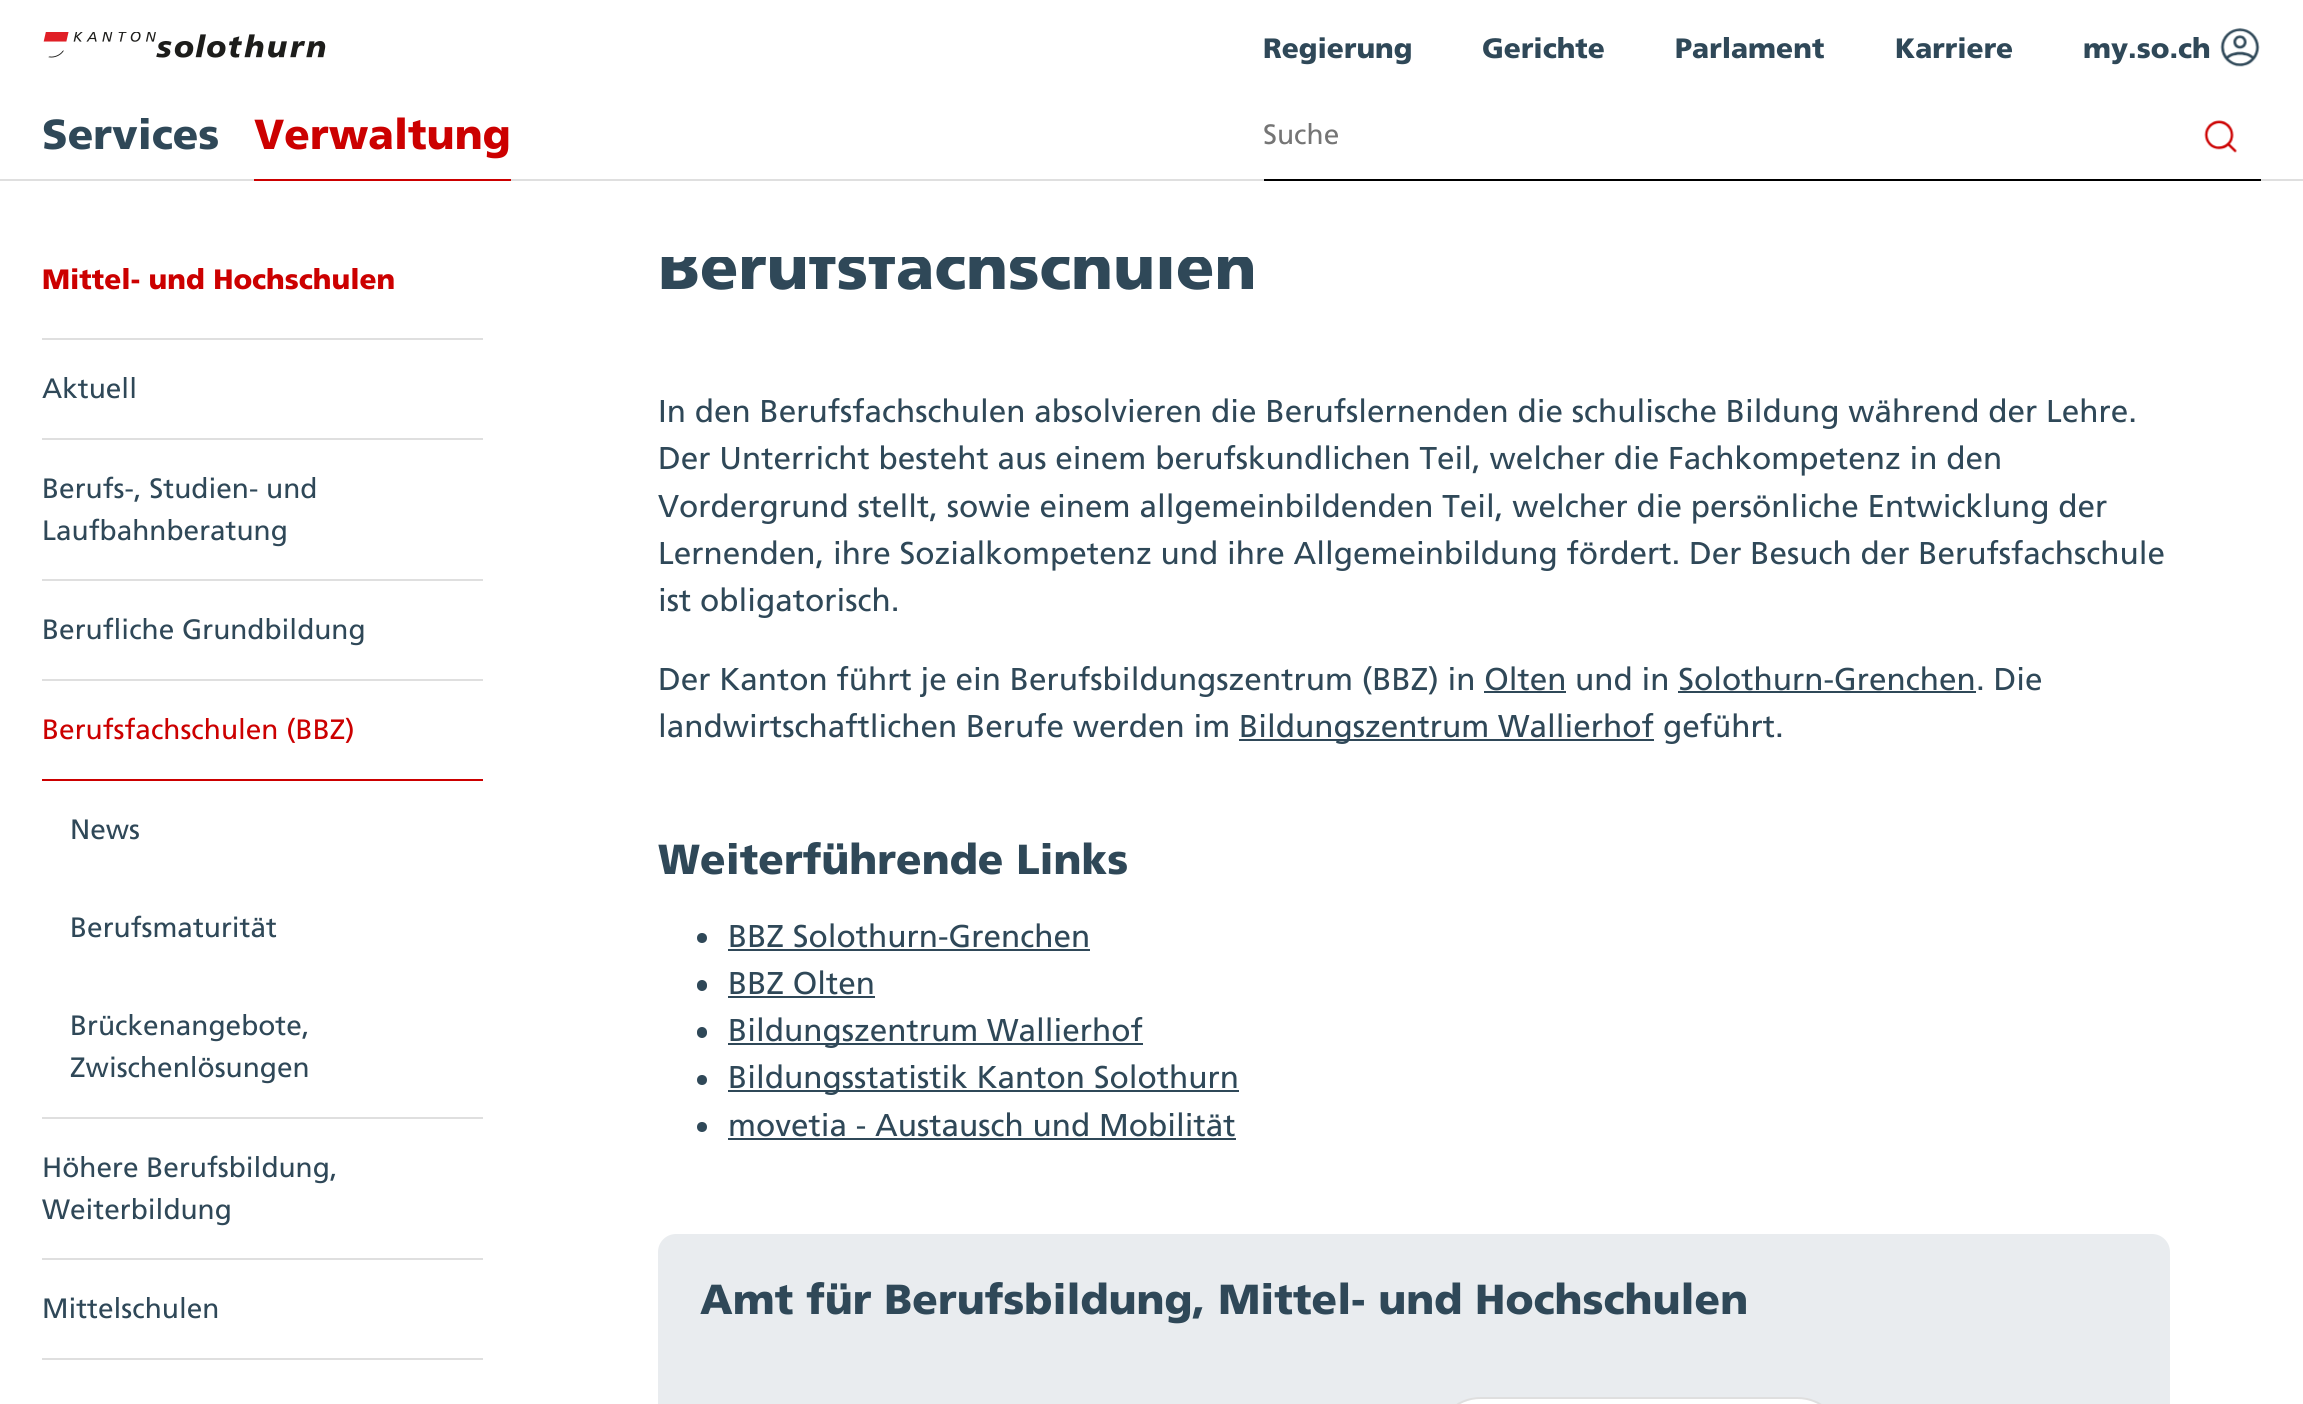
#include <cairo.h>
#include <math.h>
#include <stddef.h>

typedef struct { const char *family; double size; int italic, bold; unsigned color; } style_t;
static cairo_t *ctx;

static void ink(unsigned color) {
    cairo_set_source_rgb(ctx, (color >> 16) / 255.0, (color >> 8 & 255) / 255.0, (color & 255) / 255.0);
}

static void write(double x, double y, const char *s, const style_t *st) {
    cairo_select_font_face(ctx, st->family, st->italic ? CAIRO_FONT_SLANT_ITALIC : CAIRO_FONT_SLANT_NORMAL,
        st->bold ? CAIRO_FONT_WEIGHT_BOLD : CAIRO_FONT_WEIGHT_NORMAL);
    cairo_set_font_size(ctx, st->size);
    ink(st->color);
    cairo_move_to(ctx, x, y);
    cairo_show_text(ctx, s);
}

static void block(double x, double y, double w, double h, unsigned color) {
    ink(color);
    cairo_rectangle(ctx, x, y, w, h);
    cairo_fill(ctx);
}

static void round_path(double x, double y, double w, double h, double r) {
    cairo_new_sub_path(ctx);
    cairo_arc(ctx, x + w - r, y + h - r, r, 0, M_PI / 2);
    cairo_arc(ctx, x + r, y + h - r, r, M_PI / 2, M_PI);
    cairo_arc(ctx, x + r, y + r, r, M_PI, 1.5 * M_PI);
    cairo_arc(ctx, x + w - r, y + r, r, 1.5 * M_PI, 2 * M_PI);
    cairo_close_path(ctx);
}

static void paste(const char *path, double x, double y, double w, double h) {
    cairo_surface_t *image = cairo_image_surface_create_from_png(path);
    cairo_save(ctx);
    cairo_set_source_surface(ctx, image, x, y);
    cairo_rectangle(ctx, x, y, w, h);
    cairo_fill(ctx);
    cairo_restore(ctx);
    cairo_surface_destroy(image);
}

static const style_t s1 = {"Frutiger Black", 63, 0, 0, 0x2f4858};
static const style_t s2 = {"Frutiger Black", 28, 0, 0, 0x2f4858};
static const style_t s3 = {"Frutiger Black", 42, 0, 0, 0x2f4858};
static const style_t s4 = {"Frutiger Black", 42, 0, 0, 0xcc0000};
static const style_t s5 = {"Frutiger", 28, 0, 0, 0x757575};
static const style_t s6 = {"Frutiger Black", 28, 0, 0, 0xcc0000};
static const style_t s7 = {"Frutiger", 28, 0, 0, 0x2f4858};
static const style_t s8 = {"Frutiger", 28, 0, 0, 0xcc0000};
static const style_t s9 = {"Frutiger", 31.5, 0, 0, 0x2f4858};

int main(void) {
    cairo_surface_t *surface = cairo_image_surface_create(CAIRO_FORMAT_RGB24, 2303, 1404);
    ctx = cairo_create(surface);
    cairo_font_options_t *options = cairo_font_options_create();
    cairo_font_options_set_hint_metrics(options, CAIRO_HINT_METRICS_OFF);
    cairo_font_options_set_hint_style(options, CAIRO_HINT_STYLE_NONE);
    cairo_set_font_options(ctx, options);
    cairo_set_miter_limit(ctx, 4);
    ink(0xffffff);
    cairo_paint(ctx);
    write(658, 289, "Berufsfachschulen", &s1);
    block(661, 241, 586, 16, 0xffffff);
    paste("pic1.png", 43, 32, 283, 26);
    write(1263, 58, "Regierung", &s2);
    write(1482, 58, "Gerichte", &s2);
    write(1675, 58, "Parlament", &s2);
    write(1895, 58, "Karriere", &s2);
    write(2083, 58, "my.so.ch", &s2);
    paste("pic2.png", 2220, 28, 40, 39);
    write(42, 149, "Services", &s3);
    block(0, 179, 2303, 2, 0xdfdfdf);
    block(254, 179, 257, 2, 0xcc0000);
    write(254, 149, "Verwaltung", &s4);
    block(1264, 179, 997, 2, 0x000000);
    write(1263, 144, "Suche", &s5);
    paste("pic3.png", 2204, 120, 33, 33);
    write(42, 289, "Mittel- und Hochschulen", &s6);
    block(42, 338, 441, 2, 0xdfdfdf);
    write(42, 398, "Aktuell", &s7);
    block(42, 438, 441, 2, 0xdfdfdf);
    write(42, 498, "Berufs-, Studien- und", &s7);
    write(42, 540, "Laufbahnberatung", &s7);
    block(42, 579, 441, 2, 0xdfdfdf);
    write(42, 639, "Berufliche Grundbildung", &s7);
    block(42, 679, 441, 2, 0xdfdfdf);
    write(42, 739, "Berufsfachschulen (BBZ)", &s8);
    block(42, 779, 441, 2, 0xcc0000);
    write(70, 839, "News", &s7);
    write(70, 937, "Berufsmaturität", &s7);
    write(70, 1035, "Brückenangebote,", &s7);
    write(70, 1077, "Zwischenlösungen", &s7);
    block(42, 1117, 441, 2, 0xdfdfdf);
    write(42, 1177, "Höhere Berufsbildung,", &s7);
    write(42, 1219, "Weiterbildung", &s7);
    block(42, 1258, 441, 2, 0xdfdfdf);
    write(42, 1318, "Mittelschulen", &s7);
    block(42, 1358, 441, 2, 0xdfdfdf);
    write(658, 422, "In den Berufsfachschulen absolvieren die Berufslernenden die schulische Bildung während der Lehre.", &s9);
    write(658, 469, "Der Unterricht besteht aus einem berufskundlichen Teil, welcher die Fachkompetenz in den", &s9);
    write(658, 517, "Vordergrund stellt, sowie einem allgemeinbildenden Teil, welcher die persönliche Entwicklung der", &s9);
    write(658, 564, "Lernenden, ihre Sozialkompetenz und ihre Allgemeinbildung fördert. Der Besuch der Berufsfachschule", &s9);
    write(658, 611, "ist obligatorisch.", &s9);
    write(658, 690, "Der Kanton führt je ein Berufsbildungszentrum (BBZ) in Olten", &s9);
    write(1575, 690, "und in Solothurn-Grenchen", &s9);
    write(1976, 690, ". Die", &s9);
    block(1484, 691, 82, 2, 0x2f4858);
    block(1678, 691, 298, 2, 0x2f4858);
    write(658, 737, "landwirtschaftlichen Berufe werden im", &s9);
    block(1239, 739, 415, 2, 0x2f4858);
    write(1239, 737, "Bildungszentrum Wallierhof", &s9);
    write(1663, 737, "geführt.", &s9);
    write(658, 874, "Weiterführende Links", &s3);
    cairo_new_path(ctx);
    cairo_arc(ctx, 702, 938, 5, 0, 2 * M_PI);
    cairo_fill(ctx);
    write(728, 947, "BBZ Solothurn-Grenchen", &s9);
    block(728, 949, 362, 2, 0x2f4858);
    round_path(697, 980, 10, 11, 5);
    cairo_fill(ctx);
    write(728, 994, "BBZ Olten", &s9);
    block(728, 996, 147, 2, 0x2f4858);
    round_path(697, 1027, 10, 11, 5);
    cairo_fill(ctx);
    block(728, 1043, 415, 2, 0x2f4858);
    write(728, 1041, "Bildungszentrum Wallierhof", &s9);
    cairo_new_path(ctx);
    cairo_arc(ctx, 702, 1080, 5, 0, 2 * M_PI);
    cairo_fill(ctx);
    block(728, 1090, 511, 2, 0x2f4858);
    write(728, 1088, "Bildungsstatistik Kanton Solothurn", &s9);
    cairo_new_path(ctx);
    cairo_arc(ctx, 702, 1127, 5, 0, 2 * M_PI);
    cairo_fill(ctx);
    write(728, 1136, "movetia - Austausch und Mobilität", &s9);
    block(728, 1138, 508, 2, 0x2f4858);
    ink(0xe9ecef);
    round_path(658, 1234, 1512, 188, 18);
    cairo_fill(ctx);
    write(700, 1314, "Amt für Berufsbildung, Mittel- und Hochschulen", &s3);
    ink(0xffffff);
    round_path(1436, 1398, 406, 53, 44.5);
    cairo_fill_preserve(ctx);
    ink(0xdfdfdf);
    cairo_stroke(ctx);
    cairo_surface_write_to_png(surface, "screenshot.png");
    cairo_font_options_destroy(options);
    cairo_destroy(ctx);
    cairo_surface_destroy(surface);
    return 0;
}
